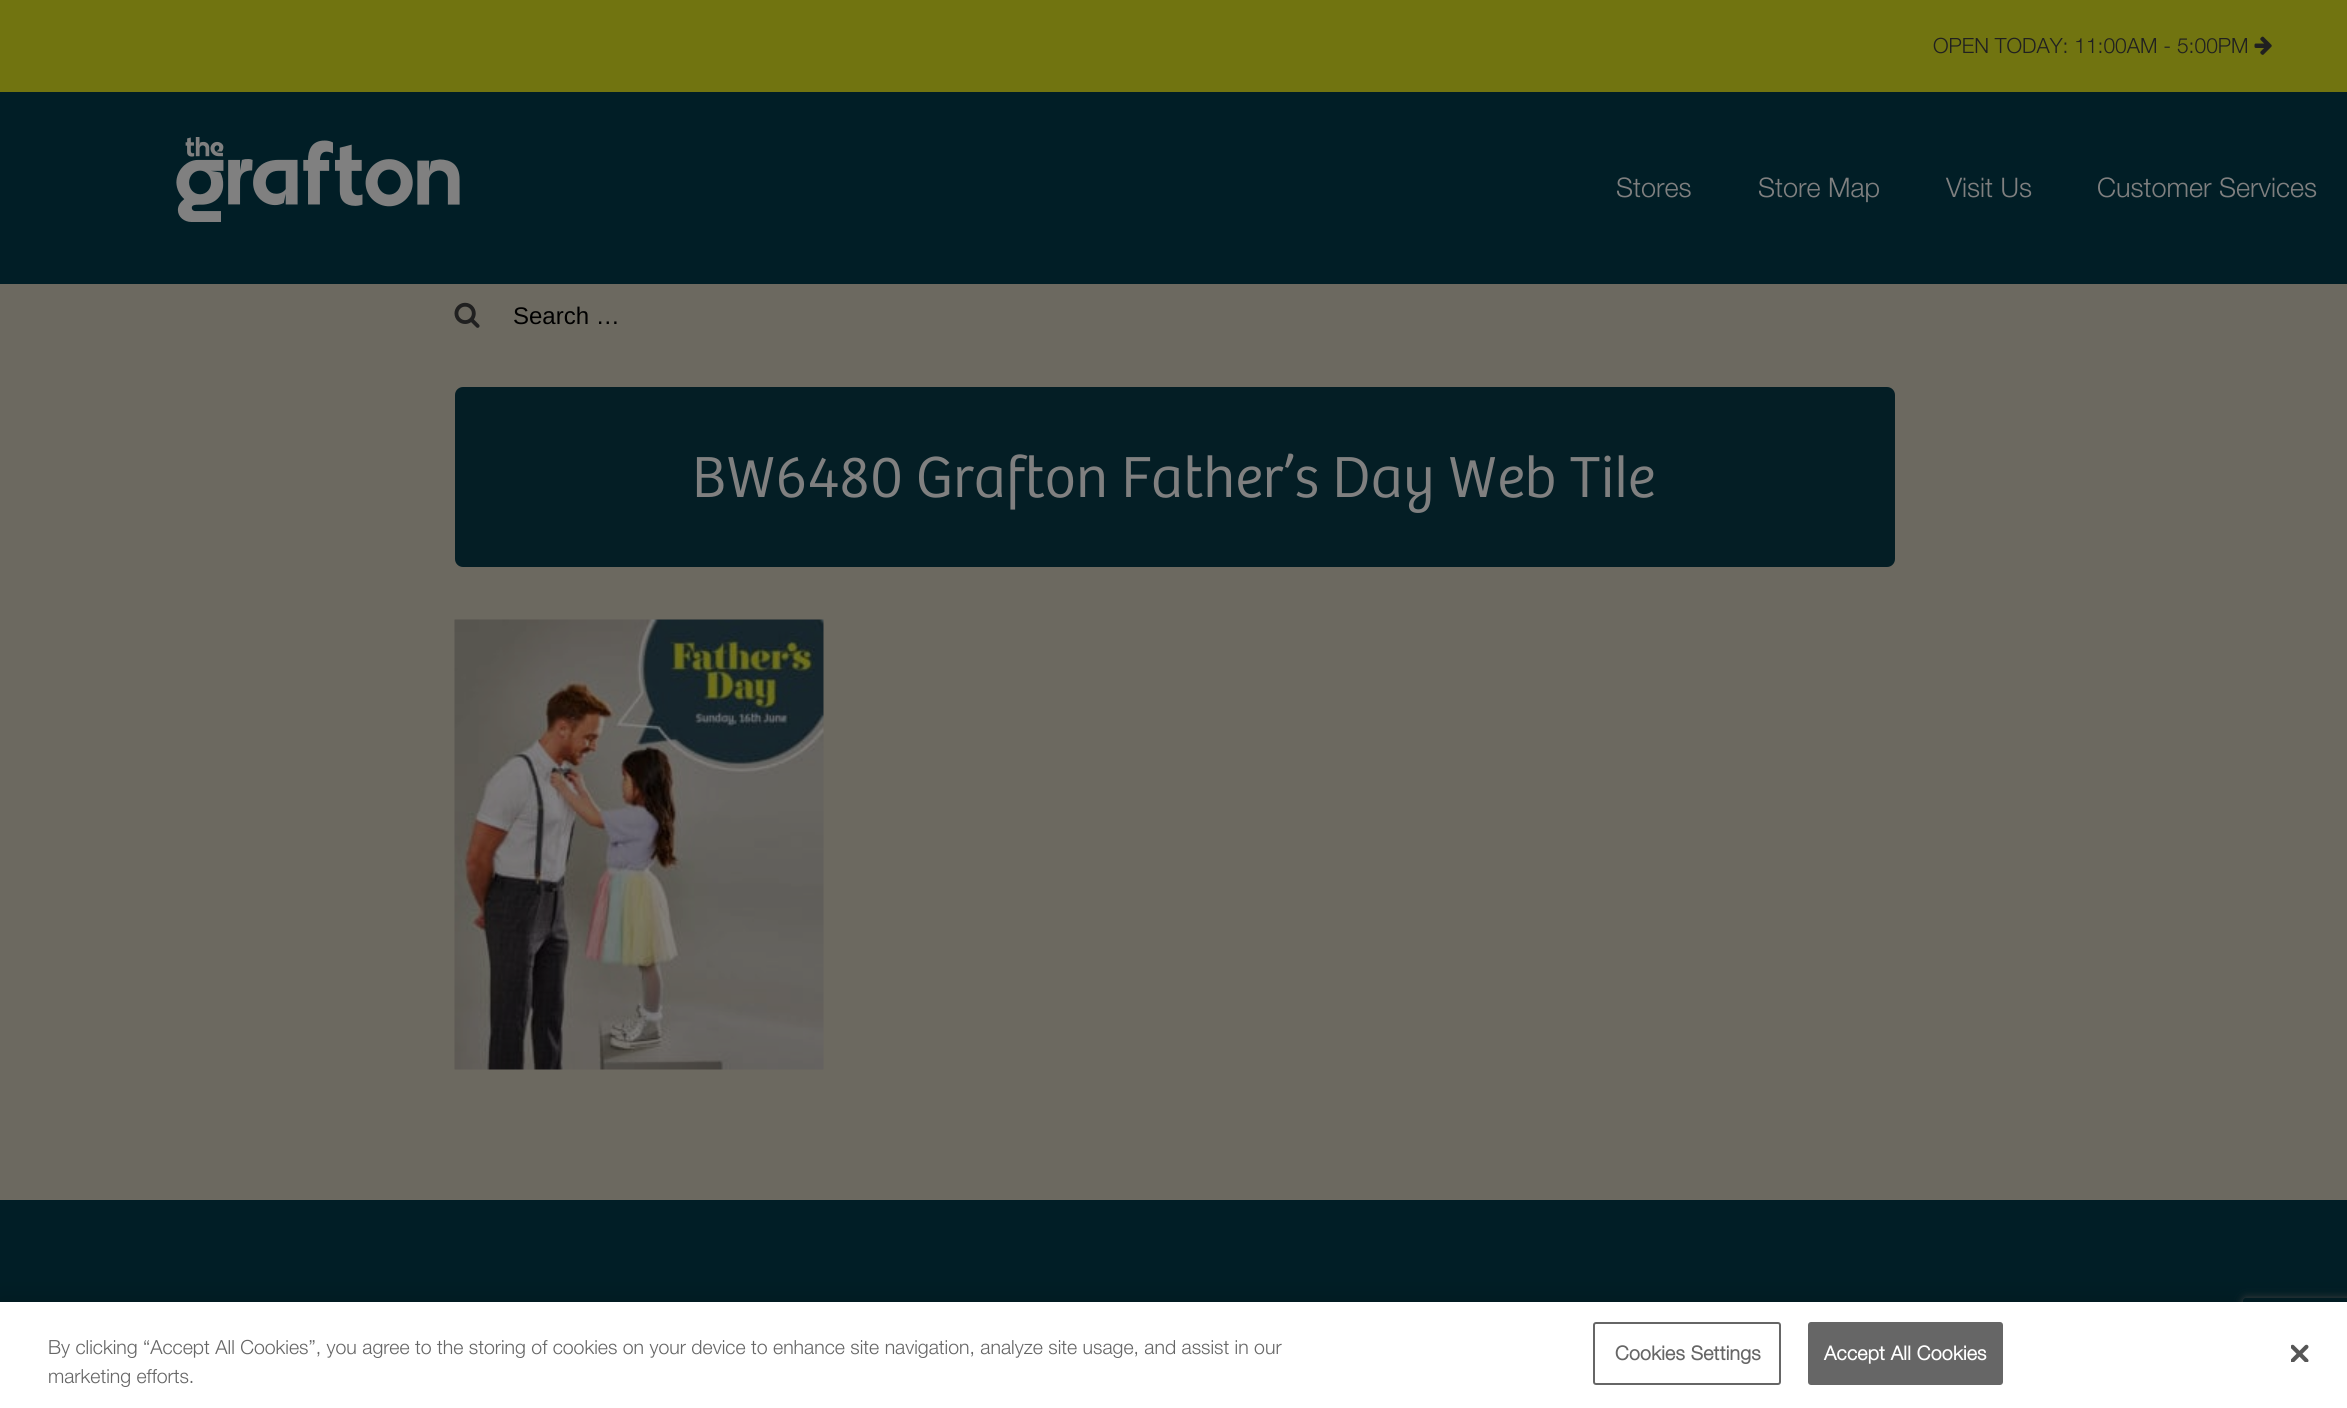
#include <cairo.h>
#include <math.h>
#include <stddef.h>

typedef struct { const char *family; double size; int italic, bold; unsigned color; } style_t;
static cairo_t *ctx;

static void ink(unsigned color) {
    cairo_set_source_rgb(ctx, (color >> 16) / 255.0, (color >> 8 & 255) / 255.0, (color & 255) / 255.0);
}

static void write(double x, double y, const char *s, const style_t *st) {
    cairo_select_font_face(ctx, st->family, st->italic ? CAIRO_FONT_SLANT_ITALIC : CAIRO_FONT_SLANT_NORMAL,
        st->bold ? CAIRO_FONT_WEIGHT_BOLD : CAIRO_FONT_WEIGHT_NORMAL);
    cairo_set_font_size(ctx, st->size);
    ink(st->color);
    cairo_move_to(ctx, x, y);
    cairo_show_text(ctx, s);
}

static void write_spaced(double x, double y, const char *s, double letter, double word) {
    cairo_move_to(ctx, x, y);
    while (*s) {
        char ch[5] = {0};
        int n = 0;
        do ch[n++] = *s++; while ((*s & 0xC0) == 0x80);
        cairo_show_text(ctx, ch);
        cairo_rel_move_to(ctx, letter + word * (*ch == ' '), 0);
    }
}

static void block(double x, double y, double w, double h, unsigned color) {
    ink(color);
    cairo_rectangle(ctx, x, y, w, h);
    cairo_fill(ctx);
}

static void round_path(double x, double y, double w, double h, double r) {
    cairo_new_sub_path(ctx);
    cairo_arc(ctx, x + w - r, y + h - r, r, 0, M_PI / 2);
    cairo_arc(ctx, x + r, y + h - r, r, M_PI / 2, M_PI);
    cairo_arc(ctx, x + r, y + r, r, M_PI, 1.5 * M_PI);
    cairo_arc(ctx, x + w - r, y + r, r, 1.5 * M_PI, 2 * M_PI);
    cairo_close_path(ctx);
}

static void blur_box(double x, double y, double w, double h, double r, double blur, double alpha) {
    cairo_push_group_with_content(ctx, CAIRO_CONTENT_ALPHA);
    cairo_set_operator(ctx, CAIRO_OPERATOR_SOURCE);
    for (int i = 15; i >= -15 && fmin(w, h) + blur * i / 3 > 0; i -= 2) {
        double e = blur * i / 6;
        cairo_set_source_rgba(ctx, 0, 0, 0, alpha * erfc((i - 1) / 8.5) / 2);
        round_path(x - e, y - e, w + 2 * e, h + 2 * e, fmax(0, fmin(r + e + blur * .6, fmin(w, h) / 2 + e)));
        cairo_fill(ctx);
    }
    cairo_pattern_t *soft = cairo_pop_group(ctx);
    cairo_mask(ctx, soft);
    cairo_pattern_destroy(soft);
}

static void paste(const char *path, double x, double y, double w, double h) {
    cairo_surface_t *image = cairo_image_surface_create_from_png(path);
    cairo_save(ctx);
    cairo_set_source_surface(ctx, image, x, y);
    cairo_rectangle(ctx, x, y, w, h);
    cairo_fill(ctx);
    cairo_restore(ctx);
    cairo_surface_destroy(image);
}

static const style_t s1 = {"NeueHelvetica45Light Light", 21, 0, 0, 0x202020};
static const style_t s2 = {"NeueHelvetica45Light Light", 27, 0, 0, 0x808080};
static const style_t s3 = {"Liberation Sans", 24, 0, 0, 0x000000};
static const style_t s4 = {"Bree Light", 60, 0, 0, 0x808080};
static const style_t s5 = {"NeueHelvetica45Light Light", 19.5, 0, 0, 0x666666};

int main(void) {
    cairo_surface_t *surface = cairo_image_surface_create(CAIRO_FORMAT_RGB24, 2347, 1408);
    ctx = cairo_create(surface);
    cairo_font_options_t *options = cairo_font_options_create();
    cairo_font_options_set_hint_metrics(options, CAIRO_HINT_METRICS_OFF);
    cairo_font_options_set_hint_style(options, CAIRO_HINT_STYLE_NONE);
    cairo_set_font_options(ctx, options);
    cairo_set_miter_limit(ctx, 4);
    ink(0x6c6960);
    cairo_paint(ctx);
    block(0, 0, 2347, 92, 0x717410);
    write(1933, 53, "OPEN TODAY: 11:00AM - 5:00PM", &s1);
    paste("pic1.png", 2254, 36, 18, 19);
    block(0, 92, 2347, 192, 0x011e26);
    paste("pic2.png", 176, 137, 284, 85);
    write(1616, 197, "Stores", &s2);
    write(1758, 197, "Store Map", &s2);
    write(1946, 197, "Visit Us", &s2);
    write(2097, 197, "Customer Services", &s2);
    paste("pic3.png", 454, 302, 26, 26);
    write(513, 324, "Search …", &s3);
    ink(0x041e25);
    round_path(455, 387, 1440, 180, 8);
    cairo_fill(ctx);
    write(692, 497, "BW6480 Grafton Father’s Day Web Tile", &s4);
    paste("pic4.png", 454, 619, 370, 451);
    block(0, 1200, 2347, 102, 0x011e26);
    ink(0x000000);
    blur_box(0, 1302, 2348, 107, 0, 13.5, 0.2);
    cairo_save(ctx);
    cairo_set_fill_rule(ctx, CAIRO_FILL_RULE_EVEN_ODD);
    cairo_new_path(ctx);
    cairo_move_to(ctx, 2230, 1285);
    cairo_line_to(ctx, 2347, 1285);
    cairo_line_to(ctx, 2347, 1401);
    cairo_line_to(ctx, 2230, 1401);
    cairo_close_path(ctx);
    cairo_move_to(ctx, 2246, 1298);
    cairo_line_to(ctx, 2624, 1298);
    cairo_curve_to(ctx, 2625.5, 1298, 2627, 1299.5, 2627, 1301);
    cairo_line_to(ctx, 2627, 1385);
    cairo_curve_to(ctx, 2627, 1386.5, 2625.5, 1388, 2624, 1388);
    cairo_line_to(ctx, 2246, 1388);
    cairo_curve_to(ctx, 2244.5, 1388, 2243, 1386.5, 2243, 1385);
    cairo_line_to(ctx, 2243, 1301);
    cairo_curve_to(ctx, 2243, 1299.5, 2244.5, 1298, 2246, 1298);
    cairo_close_path(ctx);
    cairo_clip(ctx);
    ink(0x404040);
    blur_box(2243, 1298, 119, 90, 3, 4, 1);
    cairo_restore(ctx);
    block(0, 1302, 2347, 106, 0xffffff);
    write(48, 1354, "By clicking “Accept All Cookies”, you agree to the storing of cookies on your device to enhance site navigation, analyze site usage, and assist in our", &s5);
    write(48, 1383, "marketing efforts.", &s5);
    round_path(1594, 1323, 186, 61, 2);
    cairo_stroke(ctx);
    cairo_select_font_face(ctx, "NeueHelvetica45Light", CAIRO_FONT_SLANT_NORMAL, CAIRO_FONT_WEIGHT_BOLD);
    write_spaced(1615, 1360, "Cookies Settings", 0.25, 0);
    round_path(1809, 1323, 193, 61, 2);
    cairo_fill_preserve(ctx);
    cairo_stroke(ctx);
    ink(0xffffff);
    write_spaced(1824, 1360, "Accept All Cookies", 0.25, 0);
    paste("pic5.png", 2291, 1344, 18, 18);
    cairo_surface_write_to_png(surface, "screenshot.png");
    cairo_font_options_destroy(options);
    cairo_destroy(ctx);
    cairo_surface_destroy(surface);
    return 0;
}
